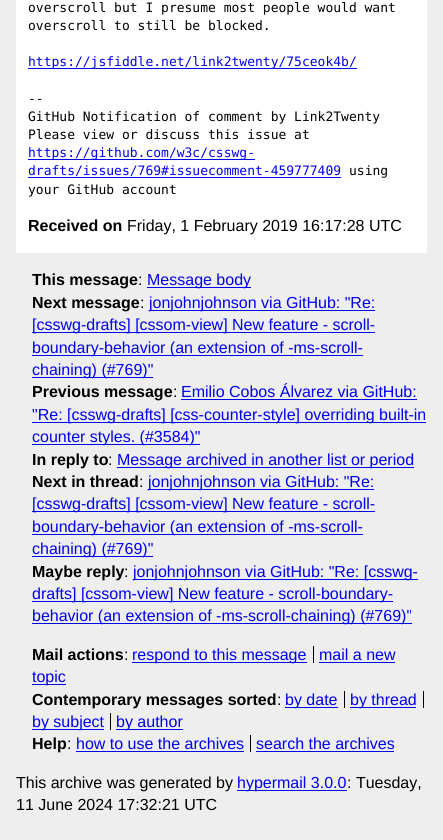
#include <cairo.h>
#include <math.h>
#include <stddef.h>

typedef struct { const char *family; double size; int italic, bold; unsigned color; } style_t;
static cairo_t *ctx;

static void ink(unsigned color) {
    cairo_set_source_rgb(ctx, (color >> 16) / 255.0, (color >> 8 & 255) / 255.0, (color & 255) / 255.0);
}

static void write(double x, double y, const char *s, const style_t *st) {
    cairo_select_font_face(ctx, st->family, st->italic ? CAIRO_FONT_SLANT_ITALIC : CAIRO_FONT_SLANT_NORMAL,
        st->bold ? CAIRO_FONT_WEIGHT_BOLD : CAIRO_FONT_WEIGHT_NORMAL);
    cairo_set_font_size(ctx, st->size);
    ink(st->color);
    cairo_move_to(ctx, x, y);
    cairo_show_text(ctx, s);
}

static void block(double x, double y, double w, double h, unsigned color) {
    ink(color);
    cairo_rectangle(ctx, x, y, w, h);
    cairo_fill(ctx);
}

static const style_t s1 = {"DejaVu Sans Mono", 13, 0, 0, 0x000000};
static const style_t s2 = {"DejaVu Sans Mono", 13, 0, 0, 0x0000ee};
static const style_t s3 = {"Liberation Sans", 16, 0, 1, 0x000000};
static const style_t s4 = {"Liberation Sans", 16, 0, 0, 0x000000};
static const style_t s5 = {"Liberation Sans", 16, 0, 0, 0x0000ee};

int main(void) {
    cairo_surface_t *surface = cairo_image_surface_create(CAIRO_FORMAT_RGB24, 443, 840);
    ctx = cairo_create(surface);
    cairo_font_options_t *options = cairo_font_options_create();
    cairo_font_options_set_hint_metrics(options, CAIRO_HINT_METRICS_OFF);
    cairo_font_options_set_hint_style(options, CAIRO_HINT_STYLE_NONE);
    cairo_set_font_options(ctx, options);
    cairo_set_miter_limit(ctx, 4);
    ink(0xeeeeee);
    cairo_paint(ctx);
    block(16, 0, 411, 253, 0xffffff);
    write(28, 12, "overscroll but I presume most people would want", &s1);
    write(28, 30, "overscroll to still be blocked.", &s1);
    block(28, 68, 329, 1, 0x0000ee);
    write(28, 66, "https://jsfiddle.net/link2twenty/75ceok4b/", &s2);
    write(28, 103, "--", &s1);
    write(28, 121, "GitHub Notification of comment by Link2Twenty", &s1);
    write(28, 139, "Please view or discuss this issue at", &s1);
    block(28, 159, 227, 1, 0x0000ee);
    write(28, 157, "https://github.com/w3c/csswg-", &s2);
    write(28, 175, "drafts/issues/769#issuecomment-459777409", &s2);
    block(28, 177, 313, 1, 0x0000ee);
    write(349, 175, "using", &s1);
    write(28, 194, "your GitHub account", &s1);
    write(28, 231, "Received on", &s3);
    write(127, 231, "Friday, 1 February 2019 16:17:28 UTC", &s4);
    write(32, 285, "This message", &s3);
    write(138, 285, ":", &s4);
    block(147, 287, 104, 1, 0x0000ee);
    write(147, 285, "Message body", &s5);
    write(32, 308, "Next message", &s3);
    write(140, 308, ":", &s4);
    block(149, 310, 226, 1, 0x0000ee);
    write(149, 308, "jonjohnjohnson via GitHub: \"Re:", &s5);
    block(32, 332, 343, 1, 0x0000ee);
    write(32, 330, "[csswg-drafts] [cssom-view] New feature - scroll-", &s5);
    block(32, 355, 331, 1, 0x0000ee);
    write(32, 353, "boundary-behavior (an extension of -ms-scroll-", &s5);
    block(32, 377, 121, 1, 0x0000ee);
    write(32, 375, "chaining) (#769)\"", &s5);
    write(32, 397, "Previous message", &s3);
    write(173, 397, ":", &s4);
    write(181, 397, "Emilio Cobos Álvarez via GitHub:", &s5);
    block(181, 399, 236, 1, 0x0000ee);
    block(32, 422, 394, 1, 0x0000ee);
    write(32, 420, "\"Re: [csswg-drafts] [css-counter-style] overriding built-in", &s5);
    block(32, 444, 168, 1, 0x0000ee);
    write(32, 442, "counter styles. (#3584)\"", &s5);
    write(32, 465, "In reply to", &s3);
    write(108, 465, ":", &s4);
    block(117, 467, 297, 1, 0x0000ee);
    write(117, 465, "Message archived in another list or period", &s5);
    write(32, 487, "Next in thread", &s3);
    write(139, 487, ":", &s4);
    block(148, 489, 226, 1, 0x0000ee);
    write(148, 487, "jonjohnjohnson via GitHub: \"Re:", &s5);
    block(32, 511, 343, 1, 0x0000ee);
    write(32, 509, "[csswg-drafts] [cssom-view] New feature - scroll-", &s5);
    block(32, 534, 331, 1, 0x0000ee);
    write(32, 532, "boundary-behavior (an extension of -ms-scroll-", &s5);
    block(32, 556, 121, 1, 0x0000ee);
    write(32, 554, "chaining) (#769)\"", &s5);
    write(32, 577, "Maybe reply", &s3);
    write(124, 577, ":", &s4);
    block(133, 579, 285, 1, 0x0000ee);
    write(133, 577, "jonjohnjohnson via GitHub: \"Re: [csswg-", &s5);
    block(32, 601, 361, 1, 0x0000ee);
    write(32, 599, "drafts] [cssom-view] New feature - scroll-boundary-", &s5);
    block(32, 623, 380, 1, 0x0000ee);
    write(32, 621, "behavior (an extension of -ms-scroll-chaining) (#769)\"", &s5);
    write(32, 660, "Mail actions", &s3);
    write(124, 660, ":", &s4);
    block(132, 662, 175, 1, 0x0000ee);
    write(132, 660, "respond to this message", &s5);
    write(319, 660, "mail a new", &s5);
    block(313, 646, 1, 17, 0x000000);
    block(319, 662, 76, 1, 0x0000ee);
    block(32, 684, 34, 1, 0x0000ee);
    write(32, 682, "topic", &s5);
    write(32, 705, "Contemporary messages sorted", &s3);
    write(277, 705, ":", &s4);
    block(285, 707, 53, 1, 0x0000ee);
    write(285, 705, "by date", &s5);
    block(350, 707, 66, 1, 0x0000ee);
    write(350, 705, "by thread", &s5);
    block(344, 691, 1, 17, 0x000000);
    block(423, 691, 1, 17, 0x000000);
    block(32, 729, 72, 1, 0x0000ee);
    write(32, 727, "by subject", &s5);
    block(116, 729, 67, 1, 0x0000ee);
    write(116, 727, "by author", &s5);
    block(110, 713, 1, 17, 0x000000);
    write(32, 749, "Help", &s3);
    write(67, 749, ":", &s4);
    write(76, 749, "how to use the archives", &s5);
    block(76, 751, 168, 1, 0x0000ee);
    write(256, 749, "search the archives", &s5);
    block(250, 735, 1, 17, 0x000000);
    block(256, 751, 138, 1, 0x0000ee);
    write(16, 788, "This archive was generated by", &s4);
    block(237, 790, 110, 1, 0x0000ee);
    write(237, 788, "hypermail 3.0.0", &s5);
    write(347, 788, ": Tuesday,", &s4);
    write(16, 810, "11 June 2024 17:32:21 UTC", &s4);
    cairo_surface_write_to_png(surface, "screenshot.png");
    cairo_font_options_destroy(options);
    cairo_destroy(ctx);
    cairo_surface_destroy(surface);
    return 0;
}
